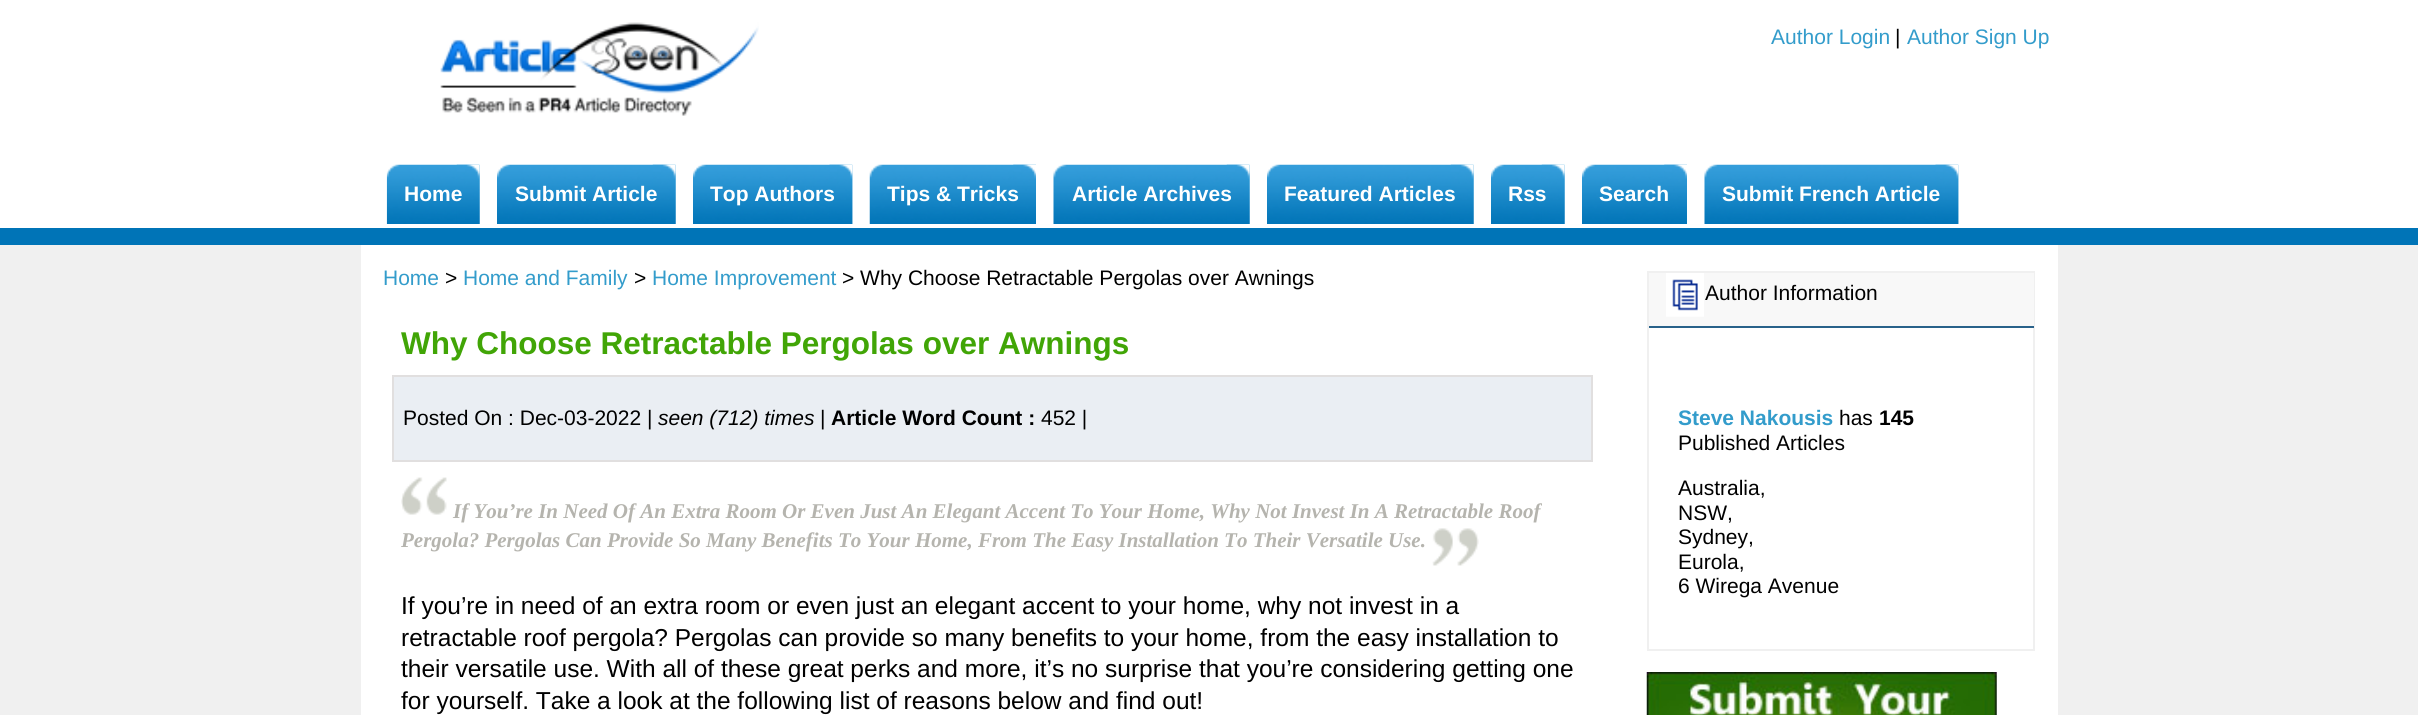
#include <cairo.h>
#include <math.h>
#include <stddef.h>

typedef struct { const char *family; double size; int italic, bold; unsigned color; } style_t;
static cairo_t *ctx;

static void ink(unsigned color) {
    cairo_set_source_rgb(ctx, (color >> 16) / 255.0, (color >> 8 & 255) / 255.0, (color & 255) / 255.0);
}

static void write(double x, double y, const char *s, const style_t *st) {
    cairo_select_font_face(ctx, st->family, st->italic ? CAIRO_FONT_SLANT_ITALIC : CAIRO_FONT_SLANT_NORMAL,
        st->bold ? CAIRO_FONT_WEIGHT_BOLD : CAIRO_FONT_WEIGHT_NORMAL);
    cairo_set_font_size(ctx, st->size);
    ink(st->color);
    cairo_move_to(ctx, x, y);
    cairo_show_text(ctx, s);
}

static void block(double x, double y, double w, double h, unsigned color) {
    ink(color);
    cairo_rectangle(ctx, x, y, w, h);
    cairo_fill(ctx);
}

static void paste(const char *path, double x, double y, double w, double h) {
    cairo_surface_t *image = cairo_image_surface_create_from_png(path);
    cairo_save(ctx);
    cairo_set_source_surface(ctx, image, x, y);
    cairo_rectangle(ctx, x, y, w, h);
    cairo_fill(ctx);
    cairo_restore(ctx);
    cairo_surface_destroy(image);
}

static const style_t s1 = {"Liberation Sans", 21, 0, 0, 0x339ccb};
static const style_t s2 = {"Liberation Sans", 21, 0, 0, 0x000000};
static const style_t s3 = {"Liberation Sans", 21, 0, 1, 0xffffff};
static const style_t s4 = {"Liberation Sans", 31.5, 0, 1, 0x41a506};
static const style_t s5 = {"Liberation Sans", 21, 1, 0, 0x000000};
static const style_t s6 = {"Liberation Sans", 21, 0, 1, 0x000000};
static const style_t s7 = {"Liberation Serif", 21, 1, 1, 0xb5b4ae};
static const style_t s8 = {"Liberation Sans", 24.5, 0, 0, 0x000000};
static const style_t s9 = {"Liberation Sans", 21, 0, 1, 0x339ccb};

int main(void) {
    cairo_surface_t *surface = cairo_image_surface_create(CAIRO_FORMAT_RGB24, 2418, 715);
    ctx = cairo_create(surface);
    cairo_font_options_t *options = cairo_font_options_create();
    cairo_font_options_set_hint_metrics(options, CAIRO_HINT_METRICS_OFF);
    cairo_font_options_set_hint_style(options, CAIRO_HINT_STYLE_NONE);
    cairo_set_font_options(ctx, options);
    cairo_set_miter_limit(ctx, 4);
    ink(0xf0f0f0);
    cairo_paint(ctx);
    block(0, 0, 2418, 228, 0xffffff);
    block(0, 228, 2418, 17, 0x0074b7);
    paste("pic1.png", 440, 22, 319, 94);
    write(1771, 44, "Author Login", &s1);
    write(1895, 44, "|", &s2);
    write(1907, 44, "Author Sign Up", &s1);
    paste("pic2.png", 386, 164, 94, 60);
    paste("pic3.png", 456, 164, 24, 60);
    write(404, 201, "Home", &s3);
    paste("pic4.png", 497, 164, 179, 60);
    paste("pic5.png", 652, 164, 24, 60);
    write(515, 201, "Submit Article", &s3);
    paste("pic6.png", 693, 164, 160, 60);
    paste("pic7.png", 829, 164, 24, 60);
    write(710, 201, "Top Authors", &s3);
    paste("pic8.png", 869, 164, 167, 60);
    paste("pic9.png", 1013, 164, 23, 15);
    write(887, 201, "Tips & Tricks", &s3);
    paste("pic10.png", 1053, 164, 197, 60);
    paste("pic11.png", 1226, 164, 24, 60);
    write(1072, 201, "Article Archives", &s3);
    paste("pic12.png", 1267, 164, 207, 60);
    paste("pic13.png", 1450, 164, 24, 60);
    write(1284, 201, "Featured Articles", &s3);
    paste("pic14.png", 1491, 164, 74, 60);
    paste("pic15.png", 1541, 164, 24, 60);
    write(1508, 201, "Rss", &s3);
    paste("pic16.png", 1582, 164, 105, 60);
    paste("pic9.png", 1664, 164, 23, 15);
    write(1599, 201, "Search", &s3);
    paste("pic17.png", 1704, 164, 255, 60);
    paste("pic18.png", 1935, 164, 24, 60);
    write(1722, 201, "Submit French Article", &s3);
    block(361, 245, 1697, 470, 0xffffff);
    write(383, 285, "Home", &s1);
    write(445, 285, ">", &s2);
    write(463, 285, "Home and Family", &s1);
    write(634, 285, ">", &s2);
    write(652, 285, "Home Improvement", &s1);
    write(842, 285, "> Why Choose Retractable Pergolas over Awnings", &s2);
    write(401, 354, "Why Choose Retractable Pergolas over Awnings", &s4);
    ink(0xeaeef3);
    cairo_rectangle(ctx, 393, 376, 1199, 85);
    cairo_fill_preserve(ctx);
    ink(0xe1dfdf);
    cairo_stroke(ctx);
    write(403, 425, "Posted On : Dec-03-2022 |", &s2);
    write(658, 425, "seen (712) times", &s5);
    write(820, 425, "|", &s2);
    write(831, 425, "Article Word Count :", &s6);
    write(1041, 425, "452 |", &s2);
    paste("pic19.png", 401, 477, 46, 38);
    write(453, 518, "If You’re In Need Of An Extra Room Or Even Just An Elegant Accent To Your Home, Why Not Invest In A Retractable Roof", &s7);
    write(401, 547, "Pergola? Pergolas Can Provide So Many Benefits To Your Home, From The Easy Installation To Their Versatile Use.", &s7);
    paste("pic20.png", 1432, 528, 47, 38);
    write(401, 614, "If you’re in need of an extra room or even just an elegant accent to your home, why not invest in a", &s8);
    write(401, 646, "retractable roof pergola? Pergolas can provide so many benefits to your home, from the easy installation to", &s8);
    write(401, 677, "their versatile use. With all of these great perks and more, it’s no surprise that you’re considering getting one", &s8);
    write(401, 709, "for yourself. Take a look at the following list of reasons below and find out!", &s8);
    cairo_rectangle(ctx, 1648, 272, 386, 378);
    ink(0xf0f0f0);
    cairo_stroke(ctx);
    block(1649, 273, 385, 53, 0xf8f8f8);
    block(1649, 326, 385, 2, 0x29628a);
    paste("pic21.png", 1666, 273, 38, 44);
    write(1705, 300, "Author Information", &s2);
    write(1678, 425, "Steve Nakousis", &s9);
    write(1839, 425, "has", &s2);
    write(1879, 425, "145", &s6);
    write(1678, 450, "Published Articles", &s2);
    write(1678, 495, "Australia,", &s2);
    write(1678, 520, "NSW,", &s2);
    write(1678, 544, "Sydney,", &s2);
    write(1678, 569, "Eurola,", &s2);
    write(1678, 593, "6 Wirega Avenue", &s2);
    paste("pic22.png", 1646, 672, 351, 43);
    cairo_surface_write_to_png(surface, "screenshot.png");
    cairo_font_options_destroy(options);
    cairo_destroy(ctx);
    cairo_surface_destroy(surface);
    return 0;
}
